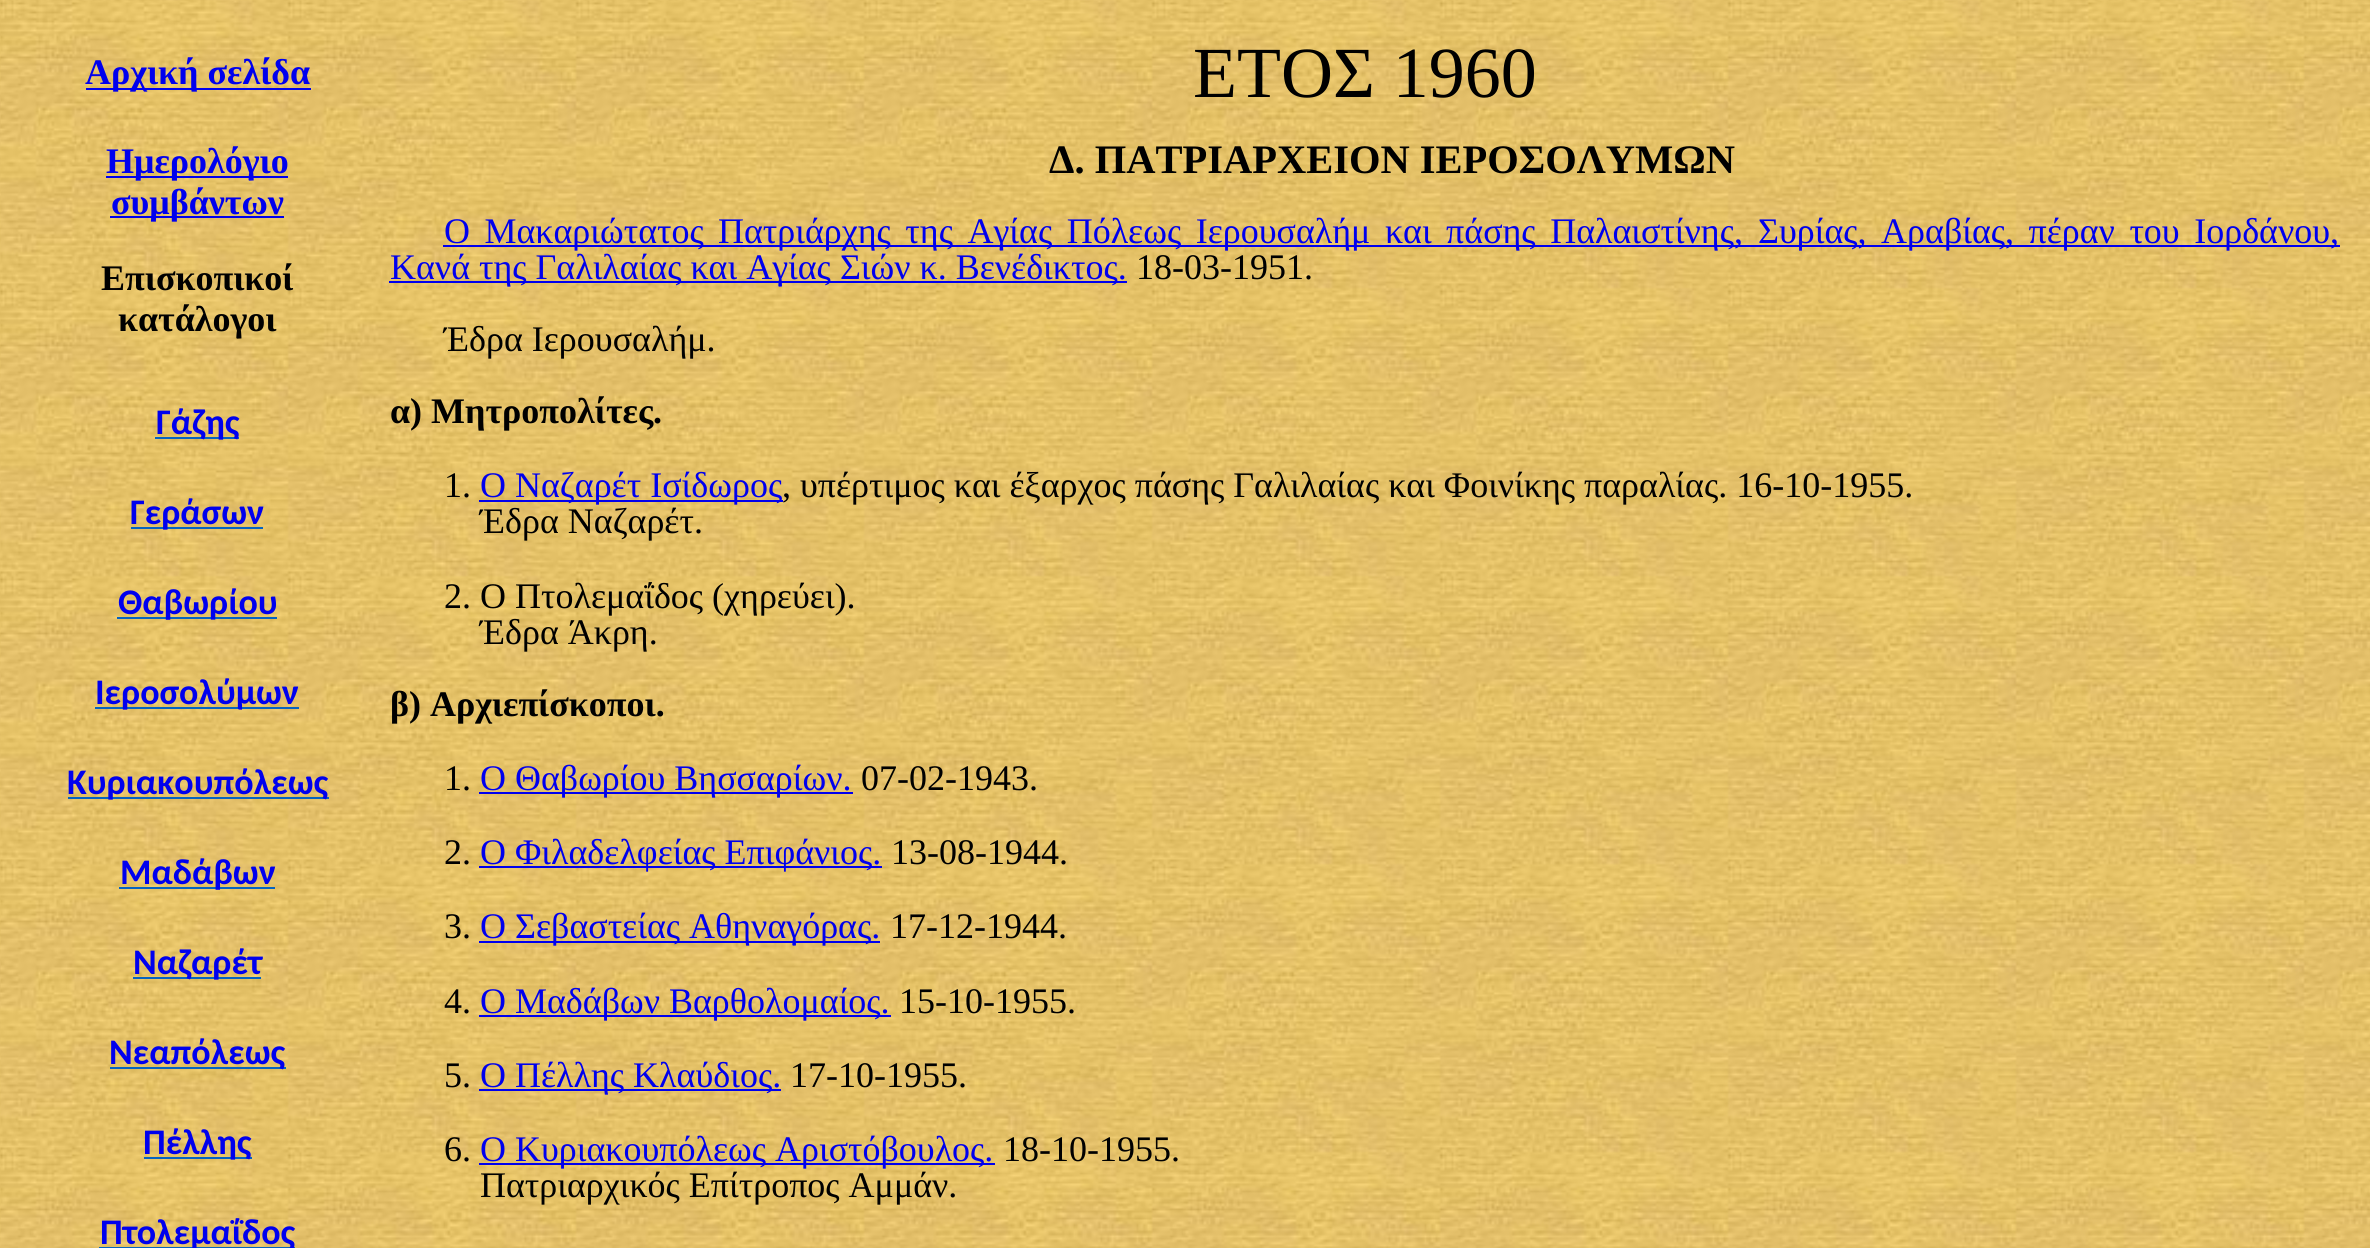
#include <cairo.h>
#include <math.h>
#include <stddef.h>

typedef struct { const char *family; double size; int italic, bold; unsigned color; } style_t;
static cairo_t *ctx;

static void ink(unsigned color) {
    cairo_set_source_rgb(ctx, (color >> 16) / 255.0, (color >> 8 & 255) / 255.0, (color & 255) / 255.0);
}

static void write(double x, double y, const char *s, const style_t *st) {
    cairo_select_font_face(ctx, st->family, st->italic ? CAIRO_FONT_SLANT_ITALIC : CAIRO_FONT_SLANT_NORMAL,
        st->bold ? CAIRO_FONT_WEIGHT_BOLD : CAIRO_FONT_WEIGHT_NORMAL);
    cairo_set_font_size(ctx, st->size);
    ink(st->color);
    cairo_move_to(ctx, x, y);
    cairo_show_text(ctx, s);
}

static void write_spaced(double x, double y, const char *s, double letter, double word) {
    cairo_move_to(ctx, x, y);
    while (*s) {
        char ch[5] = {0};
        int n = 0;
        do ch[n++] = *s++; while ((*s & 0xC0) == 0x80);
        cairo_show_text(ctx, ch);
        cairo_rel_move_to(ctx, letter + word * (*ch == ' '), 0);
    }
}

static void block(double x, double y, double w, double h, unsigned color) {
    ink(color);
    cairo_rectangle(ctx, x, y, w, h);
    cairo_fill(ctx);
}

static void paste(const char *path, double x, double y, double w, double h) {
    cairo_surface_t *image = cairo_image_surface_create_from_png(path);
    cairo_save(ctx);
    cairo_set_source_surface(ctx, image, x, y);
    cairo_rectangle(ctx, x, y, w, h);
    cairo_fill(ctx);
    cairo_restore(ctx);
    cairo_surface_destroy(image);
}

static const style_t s1 = {"Liberation Serif", 36, 0, 1, 0x0000ee};
static const style_t s2 = {"Liberation Serif", 72, 0, 0, 0x000000};
static const style_t s3 = {"Liberation Serif", 36, 0, 1, 0x000000};
static const style_t s4 = {"Carlito", 36, 0, 1, 0x0000ee};
static const style_t s5 = {"Liberation Serif", 40.5, 0, 1, 0x000000};
static const style_t s6 = {"Liberation Serif", 36, 0, 0, 0x0000ee};
static const style_t s7 = {"Liberation Serif", 36, 0, 0, 0x000000};

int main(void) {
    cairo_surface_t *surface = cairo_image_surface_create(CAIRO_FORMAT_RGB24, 2370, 1248);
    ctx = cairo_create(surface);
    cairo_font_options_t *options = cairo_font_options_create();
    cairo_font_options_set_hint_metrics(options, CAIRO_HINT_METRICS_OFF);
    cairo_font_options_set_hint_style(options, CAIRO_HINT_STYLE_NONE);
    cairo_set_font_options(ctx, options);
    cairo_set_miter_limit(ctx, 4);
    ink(0xffffff);
    cairo_paint(ctx);
    paste("pic1.png", 0, 0, 2370, 1248);
    block(86, 88, 225, 2, 0x0000ee);
    write(85, 84, "Αρχική σελίδα", &s1);
    write(1193, 97, "ΕΤΟΣ 1960", &s2);
    block(106, 176, 182, 2, 0x0000ee);
    write(106, 173, "Ημερολόγιο", &s1);
    block(110, 216, 174, 2, 0x0000ee);
    write(111, 214, "συμβάντων", &s1);
    write(101, 290, "Επισκοπικοί", &s3);
    write(118, 331, "κατάλογοι", &s3);
    block(155, 437, 84, 2, 0x0563c1);
    write(156, 434, "Γάζης", &s4);
    block(131, 527, 132, 2, 0x0563c1);
    write(130, 524, "Γεράσων", &s4);
    block(117, 617, 160, 2, 0x0563c1);
    write(118, 614, "Θαβωρίου", &s4);
    block(95, 707, 204, 2, 0x0563c1);
    write(95, 704, "Ιεροσολύμων", &s4);
    block(68, 797, 261, 2, 0x0563c1);
    write(67, 794, "Κυριακουπόλεως", &s4);
    block(119, 887, 156, 2, 0x0563c1);
    write(120, 884, "Μαδάβων", &s4);
    block(133, 977, 128, 2, 0x0563c1);
    write(133, 974, "Ναζαρέτ", &s4);
    block(110, 1067, 176, 2, 0x0563c1);
    write(109, 1064, "Νεαπόλεως", &s4);
    block(144, 1157, 108, 2, 0x0563c1);
    write(143, 1154, "Πέλλης", &s4);
    block(99, 1247, 196, 1, 0x0563c1);
    write(100, 1244, "Πτολεμαΐδος", &s4);
    write(1049, 173, "Δ. ΠΑΤΡΙΑΡΧΕΙΟΝ ΙΕΡΟΣΟΛΥΜΩΝ", &s5);
    block(443, 245, 1897, 2, 0x0000ee);
    cairo_select_font_face(ctx, "Liberation Serif", CAIRO_FONT_SLANT_NORMAL, CAIRO_FONT_WEIGHT_NORMAL);
    cairo_set_font_size(ctx, 36);
    write_spaced(444, 243, "Ο Μακαριώτατος", 0, 5.5);
    write_spaced(718, 243, "Πατριάρχης της Αγίας Πόλεως Ιερουσαλήμ και πάσης Παλαιστίνης,", 0, 5.5);
    write_spaced(1758, 243, "Συρίας, Αραβίας, πέραν του Ιορδάνου,", 0, 5.5);
    block(389, 281, 738, 2, 0x0000ee);
    write(390, 279, "Κανά της Γαλιλαίας και Αγίας Σιών κ. Βενέδικτος.", &s6);
    write(1136, 279, "18-03-1951.", &s7);
    write(444, 351, "Έδρα Ιερουσαλήμ.", &s7);
    write(390, 423, "α) Μητροπολίτες.", &s3);
    write(444, 497, "1.", &s7);
    block(479, 500, 304, 2, 0x0000ee);
    write(480, 497, "Ο Ναζαρέτ Ισίδωρος", &s6);
    write(782, 497, ", υπέρτιμος και έξαρχος πάσης Γαλιλαίας και Φοινίκης παραλίας. 16-10-1955.", &s7);
    write(480, 533, "Έδρα Ναζαρέτ.", &s7);
    write(444, 608, "2. Ο Πτολεμαΐδος (χηρεύει).", &s7);
    write(480, 644, "Έδρα Άκρη.", &s7);
    write(390, 716, "β) Αρχιεπίσκοποι.", &s3);
    write(444, 790, "1.", &s7);
    block(479, 792, 374, 2, 0x0000ee);
    write(480, 790, "Ο Θαβωρίου Βησσαρίων.", &s6);
    write(861, 790, "07-02-1943.", &s7);
    write(444, 864, "2.", &s7);
    block(479, 866, 403, 2, 0x0000ee);
    write(480, 864, "Ο Φιλαδελφείας Επιφάνιος.", &s6);
    write(891, 864, "13-08-1944.", &s7);
    write(444, 938, "3.", &s7);
    block(479, 941, 401, 2, 0x0000ee);
    write(480, 938, "Ο Σεβαστείας Αθηναγόρας.", &s6);
    write(890, 938, "17-12-1944.", &s7);
    write(444, 1013, "4.", &s7);
    block(479, 1015, 412, 2, 0x0000ee);
    write(480, 1013, "Ο Μαδάβων Βαρθολομαίος.", &s6);
    write(899, 1013, "15-10-1955.", &s7);
    write(444, 1087, "5.", &s7);
    block(479, 1089, 302, 2, 0x0000ee);
    write(480, 1087, "Ο Πέλλης Κλαύδιος.", &s6);
    write(790, 1087, "17-10-1955.", &s7);
    write(444, 1161, "6.", &s7);
    block(479, 1163, 516, 2, 0x0000ee);
    write(480, 1161, "Ο Κυριακουπόλεως Αριστόβουλος.", &s6);
    write(1003, 1161, "18-10-1955.", &s7);
    write(480, 1197, "Πατριαρχικός Επίτροπος Αμμάν.", &s7);
    cairo_surface_write_to_png(surface, "screenshot.png");
    cairo_font_options_destroy(options);
    cairo_destroy(ctx);
    cairo_surface_destroy(surface);
    return 0;
}
